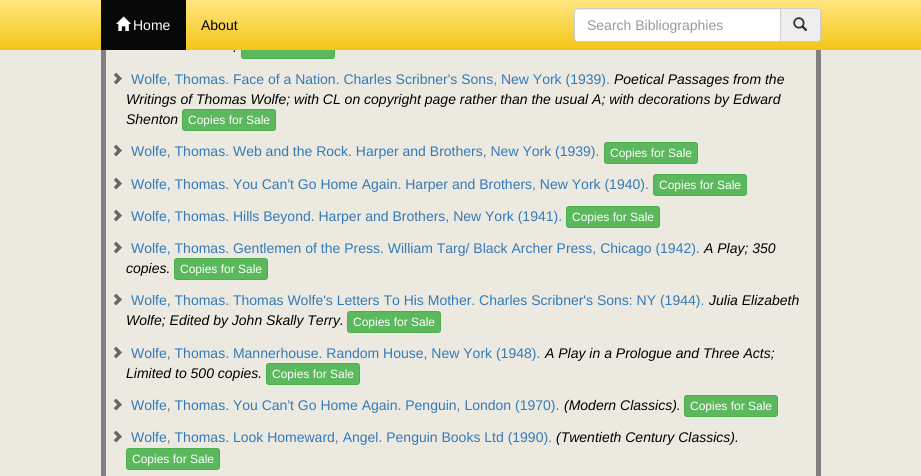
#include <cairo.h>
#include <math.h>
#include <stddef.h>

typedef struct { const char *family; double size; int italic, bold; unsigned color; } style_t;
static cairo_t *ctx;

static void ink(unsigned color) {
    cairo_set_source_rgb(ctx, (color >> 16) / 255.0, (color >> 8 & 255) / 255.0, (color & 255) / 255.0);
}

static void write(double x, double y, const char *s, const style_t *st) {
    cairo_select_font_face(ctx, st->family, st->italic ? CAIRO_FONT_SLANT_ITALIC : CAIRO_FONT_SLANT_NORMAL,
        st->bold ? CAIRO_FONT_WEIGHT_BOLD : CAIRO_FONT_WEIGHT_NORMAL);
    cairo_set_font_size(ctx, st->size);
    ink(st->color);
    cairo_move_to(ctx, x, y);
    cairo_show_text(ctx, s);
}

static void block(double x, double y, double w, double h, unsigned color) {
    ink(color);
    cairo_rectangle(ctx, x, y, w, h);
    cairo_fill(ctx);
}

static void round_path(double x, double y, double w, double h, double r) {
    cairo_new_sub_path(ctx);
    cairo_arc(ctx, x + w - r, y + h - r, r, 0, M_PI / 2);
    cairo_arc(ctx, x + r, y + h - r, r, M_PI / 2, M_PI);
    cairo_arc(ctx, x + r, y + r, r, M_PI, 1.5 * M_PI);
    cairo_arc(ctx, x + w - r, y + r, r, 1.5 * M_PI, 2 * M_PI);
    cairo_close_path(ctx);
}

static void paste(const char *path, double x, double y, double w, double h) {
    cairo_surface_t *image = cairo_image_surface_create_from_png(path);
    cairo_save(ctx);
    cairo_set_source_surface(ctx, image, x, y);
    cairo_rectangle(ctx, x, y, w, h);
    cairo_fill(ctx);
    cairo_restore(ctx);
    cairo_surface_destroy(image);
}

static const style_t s1 = {"Liberation Sans", 14, 0, 0, 0xffffff};
static const style_t s2 = {"Liberation Sans", 14, 0, 0, 0x000000};
static const style_t s3 = {"Liberation Sans", 14, 0, 0, 0x999999};
static const style_t s4 = {"Liberation Sans", 14, 1, 0, 0x000000};
static const style_t s5 = {"Liberation Sans", 14, 0, 0, 0x337ab7};
static const style_t s6 = {"Liberation Sans", 12, 0, 0, 0xffffff};

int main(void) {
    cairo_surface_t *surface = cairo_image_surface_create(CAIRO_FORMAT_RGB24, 921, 476);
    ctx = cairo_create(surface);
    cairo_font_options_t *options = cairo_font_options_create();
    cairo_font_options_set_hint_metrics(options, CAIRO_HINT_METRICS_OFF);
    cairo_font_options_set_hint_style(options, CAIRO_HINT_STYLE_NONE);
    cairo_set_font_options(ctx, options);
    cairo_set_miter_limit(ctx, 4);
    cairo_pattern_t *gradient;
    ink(0xece9e0);
    cairo_paint(ctx);
    cairo_rectangle(ctx, 103.5, -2.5, 715, 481);
    ink(0x808080);
    cairo_set_line_width(ctx, 5);
    cairo_stroke(ctx);
    ink(0x5cb85c);
    round_path(241.5, 37.5, 93, 21, 2.5);
    cairo_fill_preserve(ctx);
    ink(0x4cae4c);
    cairo_set_line_width(ctx, 1);
    cairo_stroke(ctx);
    gradient = cairo_pattern_create_linear(461, 0, 461, 50);
    cairo_pattern_add_color_stop_rgba(gradient, 0, 1, 0.902, 0.502, 1);
    cairo_pattern_add_color_stop_rgba(gradient, 1, 0.949, 0.773, 0.086, 1);
    cairo_set_source(ctx, gradient);
    cairo_pattern_destroy(gradient);
    cairo_rectangle(ctx, 0, 0, 921, 50);
    cairo_fill(ctx);
    block(101, 0, 85, 50, 0x080808);
    paste("pic1.png", 116, 16, 15, 15);
    write(133, 30, "Home", &s1);
    write(201, 30, "About", &s2);
    ink(0xffffff);
    cairo_new_path(ctx);
    cairo_move_to(ctx, 578, 8);
    cairo_line_to(ctx, 781, 8);
    cairo_line_to(ctx, 781, 42);
    cairo_line_to(ctx, 578, 42);
    cairo_curve_to(ctx, 576, 42, 574, 40, 574, 38);
    cairo_line_to(ctx, 574, 12);
    cairo_curve_to(ctx, 574, 10, 576, 8, 578, 8);
    cairo_close_path(ctx);
    cairo_fill(ctx);
    ink(0xececec);
    cairo_new_path(ctx);
    cairo_move_to(ctx, 578, 10);
    cairo_line_to(ctx, 780, 10);
    cairo_line_to(ctx, 780, 9);
    cairo_line_to(ctx, 577, 9);
    cairo_curve_to(ctx, 575, 10, 575, 11, 575, 13);
    cairo_curve_to(ctx, 575, 11, 576, 10, 578, 10);
    cairo_close_path(ctx);
    cairo_fill(ctx);
    cairo_new_path(ctx);
    cairo_move_to(ctx, 578, 8.5);
    cairo_line_to(ctx, 780.5, 8.5);
    cairo_line_to(ctx, 780.5, 41.5);
    cairo_line_to(ctx, 578, 41.5);
    cairo_curve_to(ctx, 576, 41.5, 574.5, 40, 574.5, 38);
    cairo_line_to(ctx, 574.5, 12);
    cairo_curve_to(ctx, 574.5, 10, 576, 8.5, 578, 8.5);
    cairo_close_path(ctx);
    ink(0xcccccc);
    cairo_stroke(ctx);
    write(587, 30, "Search Bibliographies", &s3);
    ink(0xeeeeee);
    cairo_new_path(ctx);
    cairo_move_to(ctx, 781, 8);
    cairo_line_to(ctx, 817, 8);
    cairo_curve_to(ctx, 819, 8, 821, 10, 821, 12);
    cairo_line_to(ctx, 821, 38);
    cairo_curve_to(ctx, 821, 40, 819, 42, 817, 42);
    cairo_line_to(ctx, 781, 42);
    cairo_close_path(ctx);
    cairo_fill(ctx);
    ink(0xcccccc);
    cairo_set_fill_rule(ctx, CAIRO_FILL_RULE_EVEN_ODD);
    cairo_new_path(ctx);
    cairo_move_to(ctx, 781, 8);
    cairo_line_to(ctx, 817, 8);
    cairo_curve_to(ctx, 819, 8, 821, 10, 821, 12);
    cairo_line_to(ctx, 821, 38);
    cairo_curve_to(ctx, 821, 40, 819, 42, 817, 42);
    cairo_line_to(ctx, 781, 42);
    cairo_close_path(ctx);
    cairo_move_to(ctx, 781, 9);
    cairo_line_to(ctx, 817, 9);
    cairo_curve_to(ctx, 819, 9, 820, 10, 820, 12);
    cairo_line_to(ctx, 820, 38);
    cairo_curve_to(ctx, 820, 40, 819, 41, 817, 41);
    cairo_line_to(ctx, 781, 41);
    cairo_close_path(ctx);
    cairo_fill(ctx);
    paste("pic2.png", 793, 17, 15, 15);
    write(233, 52, ".", &s4);
    paste("pic3.png", 113, 72, 9, 13);
    write(131, 84, "Wolfe, Thomas. Face of a Nation. Charles Scribner's Sons, New York (1939).", &s5);
    write(614, 84, "Poetical Passages from the", &s4);
    write(126, 104, "Writings of Thomas Wolfe; with CL on copyright page rather than the usual A; with decorations by Edward", &s4);
    write(126, 124, "Shenton", &s4);
    ink(0x5cb85c);
    round_path(182.5, 109.5, 93, 21, 2.5);
    cairo_fill_preserve(ctx);
    ink(0x4cae4c);
    cairo_stroke(ctx);
    write(188, 124, "Copies for Sale", &s6);
    paste("pic3.png", 113, 144, 9, 13);
    write(131, 156, "Wolfe, Thomas. Web and the Rock. Harper and Brothers, New York (1939).", &s5);
    ink(0x5cb85c);
    round_path(604.5, 142.5, 93, 21, 2.5);
    cairo_fill_preserve(ctx);
    ink(0x4cae4c);
    cairo_stroke(ctx);
    write(610, 157, "Copies for Sale", &s6);
    paste("pic3.png", 113, 177, 9, 13);
    write(131, 189, "Wolfe, Thomas. You Can't Go Home Again. Harper and Brothers, New York (1940).", &s5);
    ink(0x5cb85c);
    round_path(653.5, 174.5, 93, 21, 2.5);
    cairo_fill_preserve(ctx);
    ink(0x4cae4c);
    cairo_stroke(ctx);
    write(659, 189, "Copies for Sale", &s6);
    paste("pic3.png", 113, 209, 9, 13);
    write(131, 221, "Wolfe, Thomas. Hills Beyond. Harper and Brothers, New York (1941).", &s5);
    ink(0x5cb85c);
    round_path(566.5, 206.5, 93, 21, 2.5);
    cairo_fill_preserve(ctx);
    ink(0x4cae4c);
    cairo_stroke(ctx);
    write(572, 221, "Copies for Sale", &s6);
    paste("pic3.png", 113, 241, 9, 13);
    write(131, 253, "Wolfe, Thomas. Gentlemen of the Press. William Targ/ Black Archer Press, Chicago (1942).", &s5);
    write(704, 253, "A Play; 350", &s4);
    write(126, 273, "copies.", &s4);
    ink(0x5cb85c);
    round_path(174.5, 258.5, 93, 21, 2.5);
    cairo_fill_preserve(ctx);
    ink(0x4cae4c);
    cairo_stroke(ctx);
    write(180, 273, "Copies for Sale", &s6);
    paste("pic3.png", 113, 293, 9, 13);
    write(131, 305, "Wolfe, Thomas. Thomas Wolfe's Letters To His Mother. Charles Scribner's Sons: NY (1944).", &s5);
    write(709, 305, "Julia Elizabeth", &s4);
    write(126, 325, "Wolfe; Edited by John Skally Terry.", &s4);
    ink(0x5cb85c);
    round_path(347.5, 311.5, 93, 21, 2.5);
    cairo_fill_preserve(ctx);
    ink(0x4cae4c);
    cairo_stroke(ctx);
    write(353, 326, "Copies for Sale", &s6);
    paste("pic3.png", 113, 346, 9, 13);
    write(131, 358, "Wolfe, Thomas. Mannerhouse. Random House, New York (1948).", &s5);
    write(545, 358, "A Play in a Prologue and Three Acts;", &s4);
    write(126, 378, "Limited to 500 copies.", &s4);
    ink(0x5cb85c);
    round_path(266.5, 363.5, 93, 21, 2.5);
    cairo_fill_preserve(ctx);
    ink(0x4cae4c);
    cairo_stroke(ctx);
    write(272, 378, "Copies for Sale", &s6);
    paste("pic3.png", 113, 398, 9, 13);
    write(131, 410, "Wolfe, Thomas. You Can't Go Home Again. Penguin, London (1970).", &s5);
    write(564, 410, "(Modern Classics).", &s4);
    ink(0x5cb85c);
    round_path(684.5, 395.5, 93, 21, 2.5);
    cairo_fill_preserve(ctx);
    ink(0x4cae4c);
    cairo_stroke(ctx);
    write(690, 410, "Copies for Sale", &s6);
    paste("pic3.png", 113, 430, 9, 13);
    write(131, 442, "Wolfe, Thomas. Look Homeward, Angel. Penguin Books Ltd (1990).", &s5);
    write(556, 442, "(Twentieth Century Classics).", &s4);
    ink(0x5cb85c);
    round_path(126.5, 448.5, 93, 21, 2.5);
    cairo_fill_preserve(ctx);
    ink(0x4cae4c);
    cairo_stroke(ctx);
    write(132, 463, "Copies for Sale", &s6);
    cairo_surface_write_to_png(surface, "screenshot.png");
    cairo_font_options_destroy(options);
    cairo_destroy(ctx);
    cairo_surface_destroy(surface);
    return 0;
}
